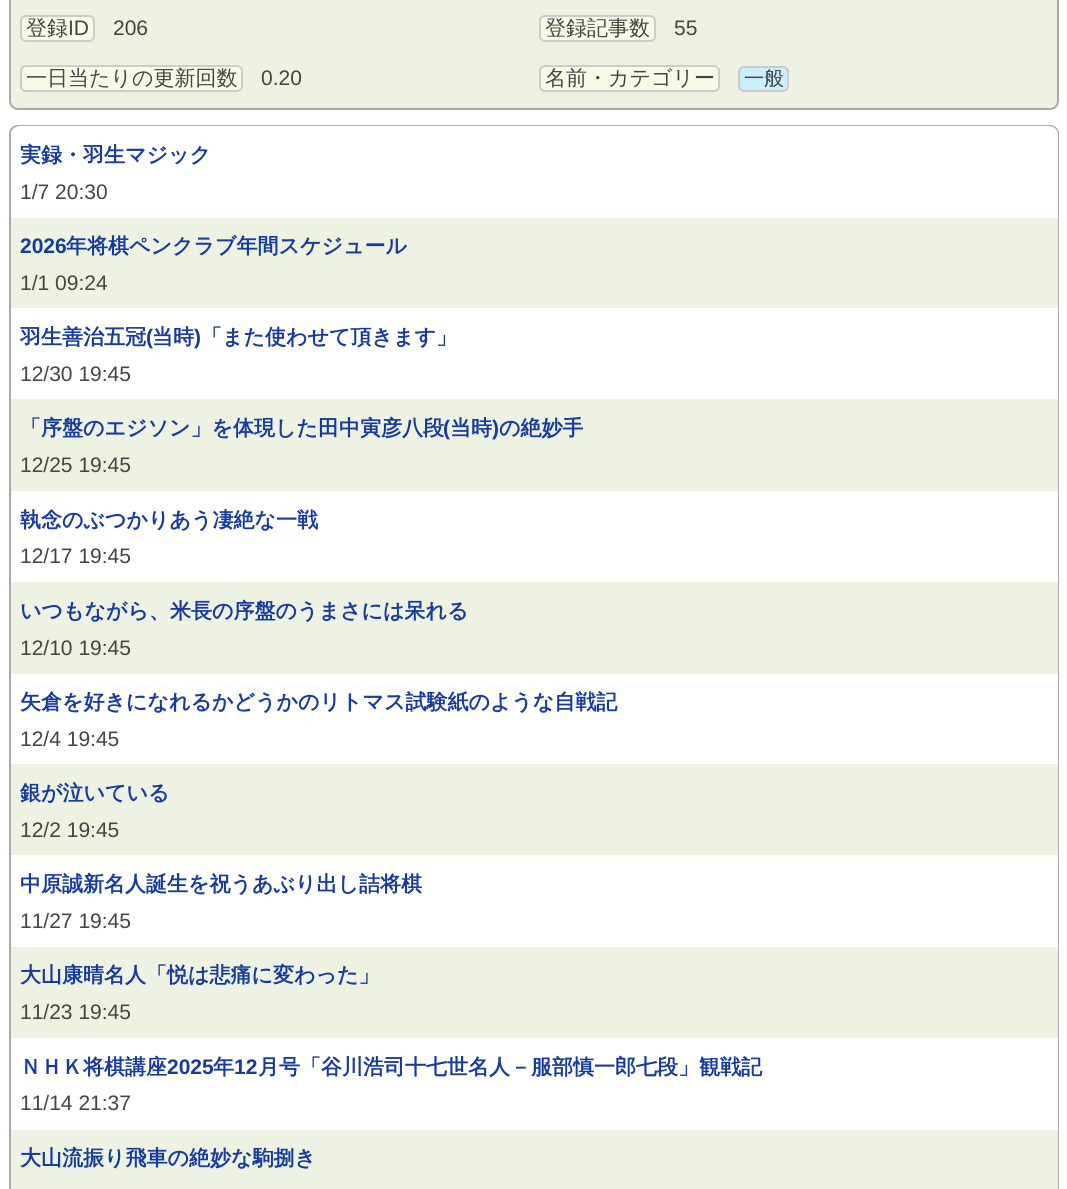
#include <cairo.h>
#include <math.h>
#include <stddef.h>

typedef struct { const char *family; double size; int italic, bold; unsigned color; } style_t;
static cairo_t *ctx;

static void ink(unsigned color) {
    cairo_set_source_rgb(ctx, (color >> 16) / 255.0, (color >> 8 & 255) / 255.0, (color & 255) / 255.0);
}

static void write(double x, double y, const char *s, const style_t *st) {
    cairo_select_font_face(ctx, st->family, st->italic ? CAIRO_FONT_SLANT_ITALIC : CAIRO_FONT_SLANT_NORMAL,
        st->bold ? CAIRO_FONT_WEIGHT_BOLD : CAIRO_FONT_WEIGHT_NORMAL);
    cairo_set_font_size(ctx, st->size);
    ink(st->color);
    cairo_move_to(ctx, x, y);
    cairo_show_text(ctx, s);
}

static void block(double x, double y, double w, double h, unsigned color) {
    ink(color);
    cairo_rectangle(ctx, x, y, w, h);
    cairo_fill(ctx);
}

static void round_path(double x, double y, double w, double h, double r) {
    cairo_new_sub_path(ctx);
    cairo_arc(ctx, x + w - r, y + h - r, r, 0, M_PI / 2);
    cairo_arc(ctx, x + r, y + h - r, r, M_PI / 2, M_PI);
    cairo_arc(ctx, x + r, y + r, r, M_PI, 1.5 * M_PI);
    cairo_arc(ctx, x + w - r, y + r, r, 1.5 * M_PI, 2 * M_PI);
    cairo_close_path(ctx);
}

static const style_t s1 = {"WenQuanYi Zen Hei Medium", 21, 0, 0, 0x444444};
static const style_t s2 = {"Liberation Sans", 21, 0, 0, 0x444444};
static const style_t s3 = {"WenQuanYi Zen Hei Medium", 20, 0, 0, 0x444444};
static const style_t s4 = {"WenQuanYi Zen Hei", 21, 0, 1, 0x163ba0};
static const style_t s5 = {"Liberation Sans", 21, 0, 1, 0x163ba0};

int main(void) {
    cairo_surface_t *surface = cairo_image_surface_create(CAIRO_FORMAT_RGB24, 1067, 1189);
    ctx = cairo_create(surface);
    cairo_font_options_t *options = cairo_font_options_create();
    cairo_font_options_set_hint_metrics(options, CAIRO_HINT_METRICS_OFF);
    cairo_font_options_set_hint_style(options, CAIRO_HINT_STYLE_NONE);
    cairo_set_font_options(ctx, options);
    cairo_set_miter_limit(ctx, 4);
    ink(0xffffff);
    cairo_paint(ctx);
    ink(0xedf2e3);
    round_path(10, -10, 1048, 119, 8);
    cairo_fill_preserve(ctx);
    ink(0xaaaaaa);
    cairo_stroke(ctx);
    ink(0xf9f9e8);
    round_path(21, 16, 73, 25, 5);
    cairo_fill_preserve(ctx);
    ink(0xcccccc);
    cairo_stroke(ctx);
    write(26, 35, "登録", &s1);
    write(68, 35, "ID", &s2);
    write(113, 35, "206", &s2);
    ink(0xf9f9e8);
    round_path(540, 16, 115, 25, 5);
    cairo_fill_preserve(ctx);
    ink(0xcccccc);
    cairo_stroke(ctx);
    write(545, 35, "登録記事数", &s1);
    write(674, 35, "55", &s2);
    ink(0xf9f9e8);
    round_path(21, 66, 221, 25, 5);
    cairo_fill_preserve(ctx);
    ink(0xcccccc);
    cairo_stroke(ctx);
    write(26, 85, "一日当たりの更新回数", &s1);
    write(261, 85, "0.20", &s2);
    ink(0xf9f9e8);
    round_path(540, 66, 179, 25, 5);
    cairo_fill_preserve(ctx);
    ink(0xcccccc);
    cairo_stroke(ctx);
    write(545, 85, "名前・カテゴリー", &s1);
    ink(0xcceeff);
    round_path(739, 67, 49, 24, 5);
    cairo_fill_preserve(ctx);
    ink(0xcccccc);
    cairo_stroke(ctx);
    write(744, 85, "一般", &s3);
    round_path(10, 126, 1048, 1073, 8);
    ink(0xaaaaaa);
    cairo_stroke(ctx);
    ink(0xffffff);
    cairo_new_path(ctx);
    cairo_move_to(ctx, 20, 126);
    cairo_line_to(ctx, 1049, 126);
    cairo_curve_to(ctx, 1054, 126, 1058, 130, 1058, 135);
    cairo_line_to(ctx, 1058, 218);
    cairo_line_to(ctx, 11, 218);
    cairo_line_to(ctx, 11, 135);
    cairo_curve_to(ctx, 11, 130, 15, 126, 20, 126);
    cairo_close_path(ctx);
    cairo_fill(ctx);
    write(20, 162, "実録・羽生マジック", &s4);
    write(20, 199, "1/7 20:30", &s2);
    block(11, 218, 1047, 90, 0xedf2e3);
    write(20, 253, "2026", &s5);
    write(66, 253, "年将棋ペンクラブ年間スケジュール", &s4);
    write(20, 290, "1/1 09:24", &s2);
    block(1057, 308, 1, 91, 0xffffff);
    write(20, 344, "羽生善治五冠", &s4);
    write(146, 344, "(", &s5);
    write(152, 344, "当時", &s4);
    write(194, 344, ")", &s5);
    write(201, 344, "「また使わせて頂きます」", &s4);
    write(20, 381, "12/30 19:45", &s2);
    block(11, 399, 1047, 92, 0xedf2e3);
    write(20, 435, "「序盤のエジソン」を体現した田中寅彦八段", &s4);
    write(443, 435, "(", &s5);
    write(450, 435, "当時", &s4);
    write(492, 435, ")", &s5);
    write(499, 435, "の絶妙手", &s4);
    write(20, 472, "12/25 19:45", &s2);
    block(1057, 491, 1, 91, 0xffffff);
    write(20, 527, "執念のぶつかりあう凄絶な一戦", &s4);
    write(20, 563, "12/17 19:45", &s2);
    block(11, 582, 1047, 92, 0xedf2e3);
    write(20, 618, "いつもながら、米長の序盤のうまさには呆れる", &s4);
    write(20, 655, "12/10 19:45", &s2);
    block(1057, 674, 1, 90, 0xffffff);
    write(20, 709, "矢倉を好きになれるかどうかのリトマス試験紙のような自戦記", &s4);
    write(20, 746, "12/4 19:45", &s2);
    block(11, 764, 1047, 91, 0xedf2e3);
    write(20, 800, "銀が泣いている", &s4);
    write(20, 837, "12/2 19:45", &s2);
    block(1057, 855, 1, 92, 0xffffff);
    write(20, 891, "中原誠新名人誕生を祝うあぶり出し詰将棋", &s4);
    write(20, 928, "11/27 19:45", &s2);
    block(11, 947, 1047, 91, 0xedf2e3);
    write(20, 982, "大山康晴名人「悦は悲痛に変わった」", &s4);
    write(20, 1019, "11/23 19:45", &s2);
    block(1057, 1038, 1, 92, 0xffffff);
    write(20, 1074, "ＮＨＫ将棋講座", &s4);
    write(167, 1074, "2025", &s5);
    write(213, 1074, "年", &s4);
    write(234, 1074, "12", &s5);
    write(258, 1074, "月号「谷川浩司十七世名人－服部慎一郎七段」観戦記", &s4);
    write(20, 1110, "11/14 21:37", &s2);
    block(11, 1130, 1047, 59, 0xedf2e3);
    write(20, 1165, "大山流振り飛車の絶妙な駒捌き", &s4);
    cairo_surface_write_to_png(surface, "screenshot.png");
    cairo_font_options_destroy(options);
    cairo_destroy(ctx);
    cairo_surface_destroy(surface);
    return 0;
}
